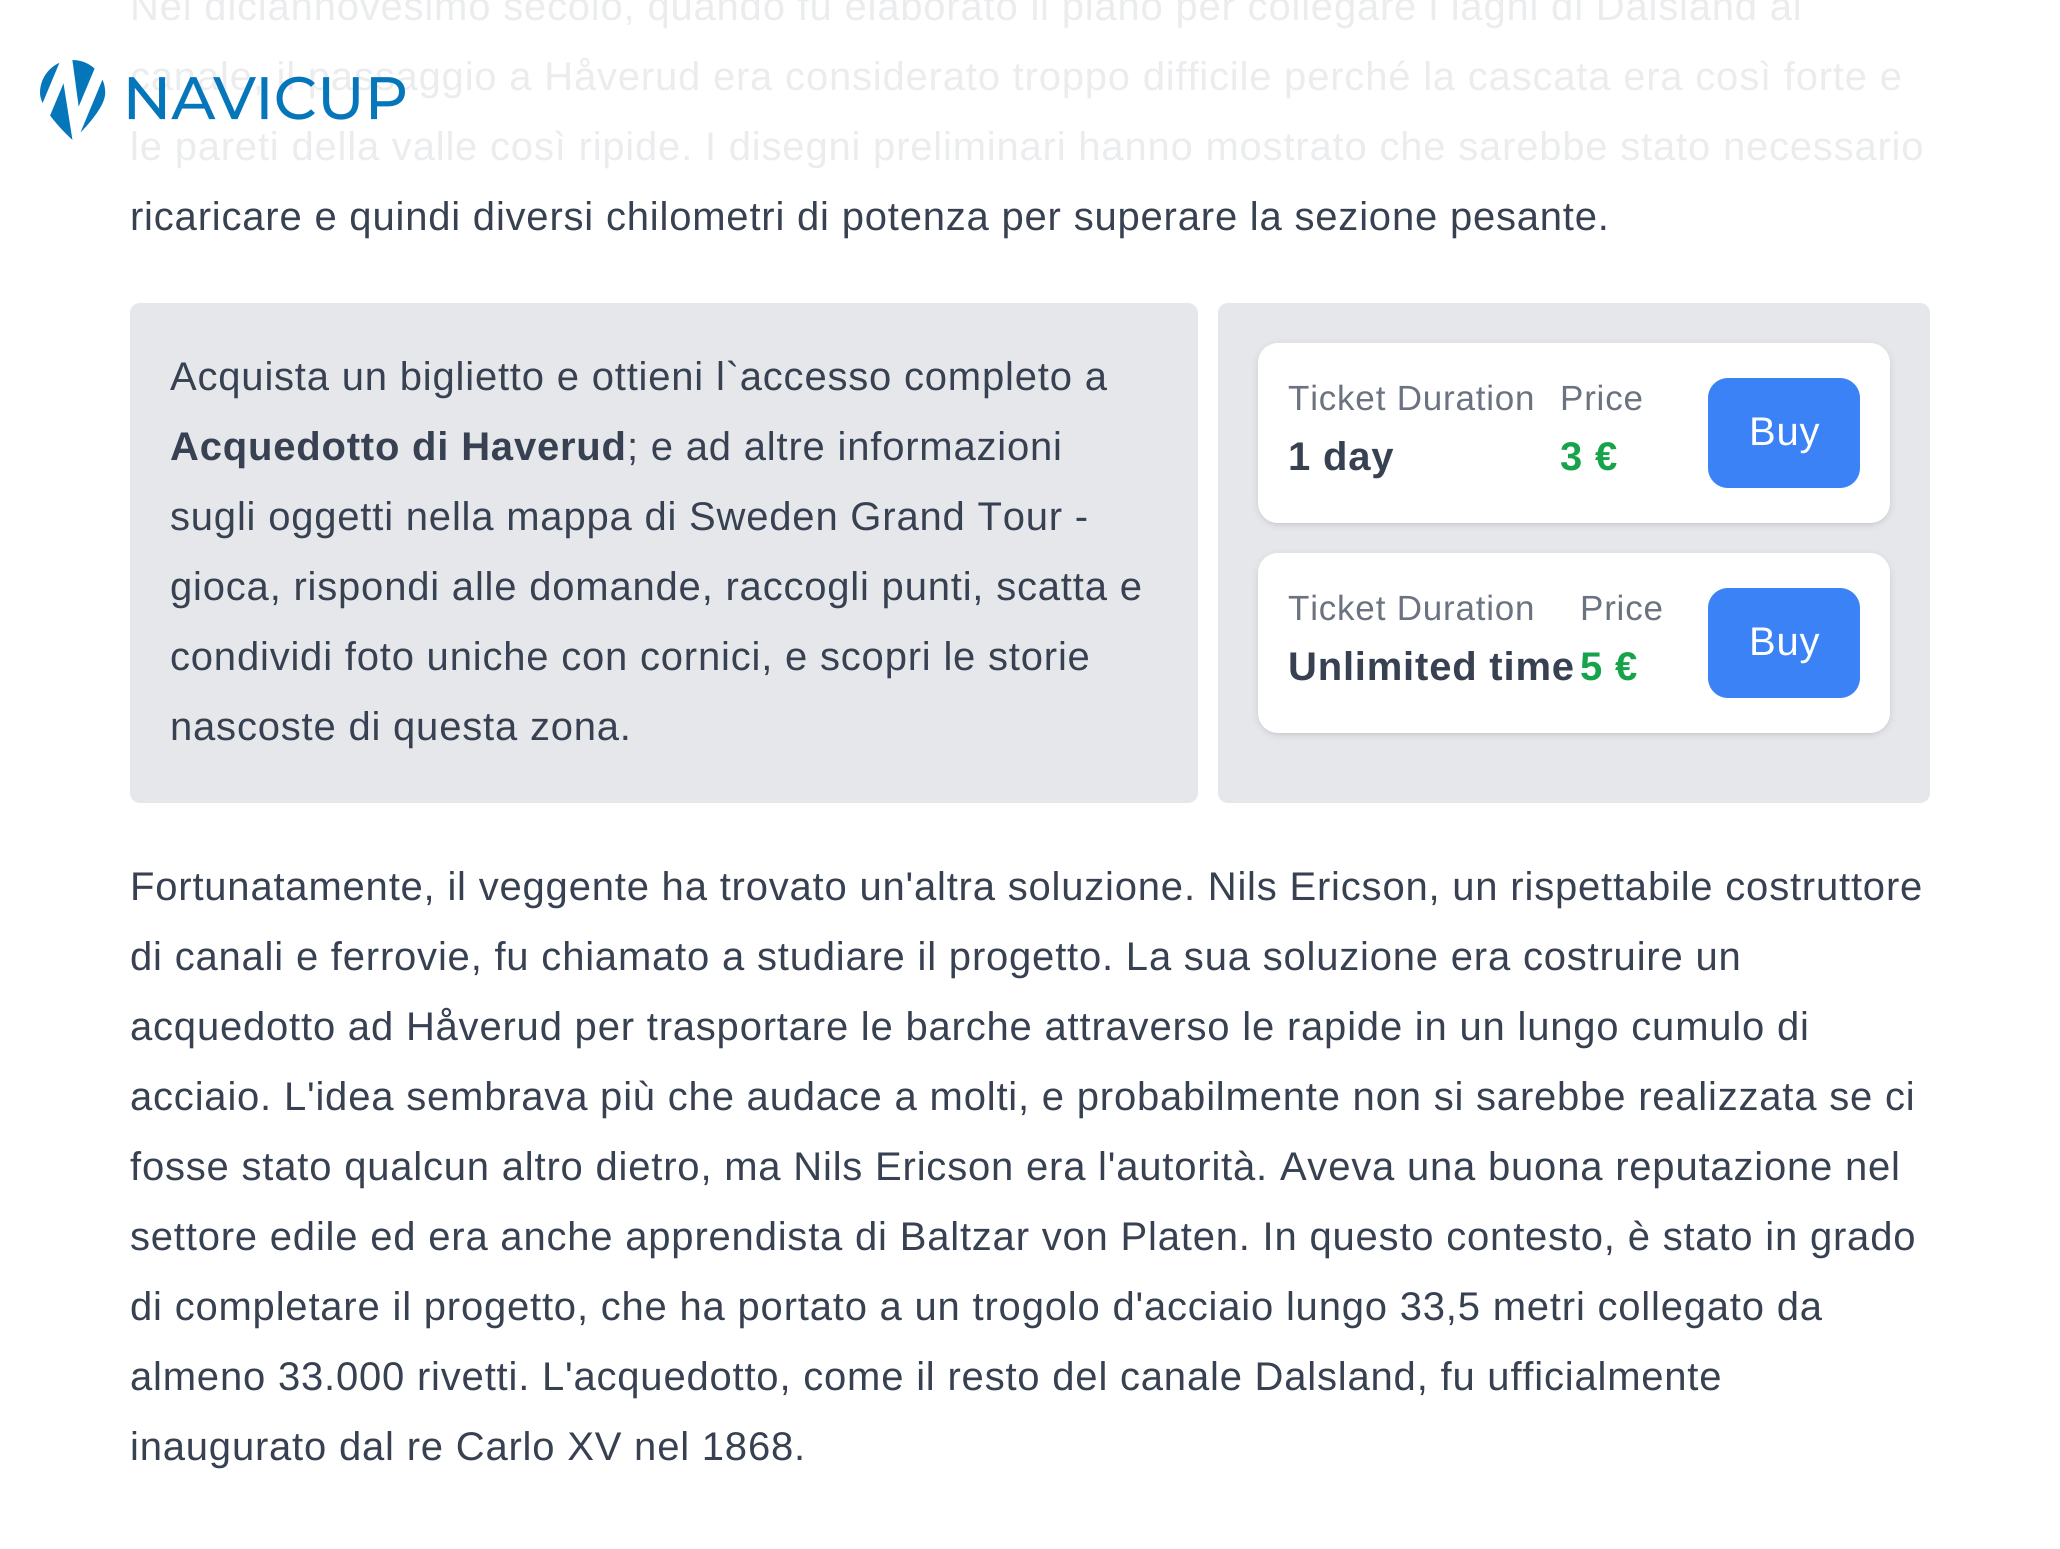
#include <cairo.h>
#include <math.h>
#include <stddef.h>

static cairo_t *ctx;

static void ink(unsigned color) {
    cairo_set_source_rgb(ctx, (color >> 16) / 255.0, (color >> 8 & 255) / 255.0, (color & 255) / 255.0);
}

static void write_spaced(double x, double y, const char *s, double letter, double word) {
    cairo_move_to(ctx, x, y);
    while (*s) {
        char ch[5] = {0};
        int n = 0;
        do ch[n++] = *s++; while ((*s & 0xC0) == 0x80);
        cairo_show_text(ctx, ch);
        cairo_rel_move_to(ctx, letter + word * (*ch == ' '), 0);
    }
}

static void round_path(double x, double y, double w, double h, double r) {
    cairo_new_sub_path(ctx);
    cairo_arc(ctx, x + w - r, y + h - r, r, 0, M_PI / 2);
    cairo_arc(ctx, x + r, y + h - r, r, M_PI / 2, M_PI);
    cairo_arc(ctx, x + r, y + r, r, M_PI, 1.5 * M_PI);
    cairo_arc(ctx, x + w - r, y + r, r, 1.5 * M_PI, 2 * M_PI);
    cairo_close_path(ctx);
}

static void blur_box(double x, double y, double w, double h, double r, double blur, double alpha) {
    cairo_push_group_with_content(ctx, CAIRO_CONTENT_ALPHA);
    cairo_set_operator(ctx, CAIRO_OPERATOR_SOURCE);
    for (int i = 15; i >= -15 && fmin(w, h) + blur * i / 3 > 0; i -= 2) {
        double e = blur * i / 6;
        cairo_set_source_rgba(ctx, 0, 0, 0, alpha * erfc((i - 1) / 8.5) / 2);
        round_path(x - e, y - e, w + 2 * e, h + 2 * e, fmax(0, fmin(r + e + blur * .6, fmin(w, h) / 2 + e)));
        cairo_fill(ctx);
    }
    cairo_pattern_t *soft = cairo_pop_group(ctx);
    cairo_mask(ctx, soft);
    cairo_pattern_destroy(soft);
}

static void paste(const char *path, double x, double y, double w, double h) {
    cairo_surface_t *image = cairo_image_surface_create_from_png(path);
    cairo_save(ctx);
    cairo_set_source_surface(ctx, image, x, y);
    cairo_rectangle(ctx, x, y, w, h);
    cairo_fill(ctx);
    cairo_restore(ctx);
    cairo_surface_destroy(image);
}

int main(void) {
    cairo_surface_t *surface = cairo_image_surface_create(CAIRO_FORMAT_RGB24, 2060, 1549);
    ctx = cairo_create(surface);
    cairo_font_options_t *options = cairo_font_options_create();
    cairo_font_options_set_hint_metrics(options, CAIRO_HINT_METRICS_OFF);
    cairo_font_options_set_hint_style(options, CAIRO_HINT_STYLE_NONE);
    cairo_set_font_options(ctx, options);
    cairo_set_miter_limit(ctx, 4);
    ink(0xffffff);
    cairo_paint(ctx);
    cairo_select_font_face(ctx, "Liberation Sans", CAIRO_FONT_SLANT_NORMAL, CAIRO_FONT_WEIGHT_NORMAL);
    cairo_set_font_size(ctx, 40);
    ink(0xebecee);
    write_spaced(130, 20, "Nel diciannovesimo secolo, quando fu elaborato il piano per collegare i laghi di Dalsland al", 0.8, 0);
    write_spaced(130, 90, "canale, il passaggio a Håverud era considerato troppo difficile perché la cascata era così forte e", 0.8, 0);
    write_spaced(130, 160, "le pareti della valle così ripide. I disegni preliminari hanno mostrato che sarebbe stato necessario", 0.8, 0);
    ink(0x374151);
    write_spaced(130, 230, "ricaricare e quindi diversi chilometri di potenza per superare la sezione pesante.", 0.8, 0);
    ink(0xe5e7eb);
    round_path(130, 303, 1068, 500, 10);
    cairo_fill(ctx);
    ink(0x374151);
    write_spaced(170, 390, "Acquista un biglietto e ottieni l`accesso completo a", 0.8, 0);
    cairo_select_font_face(ctx, "Liberation Sans", CAIRO_FONT_SLANT_NORMAL, CAIRO_FONT_WEIGHT_BOLD);
    write_spaced(170, 460, "Acquedotto di Haverud", 0.8, 0);
    cairo_select_font_face(ctx, "Liberation Sans", CAIRO_FONT_SLANT_NORMAL, CAIRO_FONT_WEIGHT_NORMAL);
    write_spaced(627, 460, "; e ad altre informazioni", 0.8, 0);
    write_spaced(170, 530, "sugli oggetti nella mappa di Sweden Grand Tour -", 0.8, 0);
    write_spaced(170, 600, "gioca, rispondi alle domande, raccogli punti, scatta e", 0.8, 0);
    write_spaced(170, 670, "condividi foto uniche con cornici, e scopri le storie", 0.8, 0);
    write_spaced(170, 740, "nascoste di questa zona.", 0.8, 0);
    ink(0xe5e7eb);
    round_path(1218, 303, 712, 500, 10);
    cairo_fill(ctx);
    ink(0x000000);
    blur_box(1260, 348, 628, 175, 18, 2.5, 0.1);
    blur_box(1258, 345, 632, 180, 20, 4, 0.1);
    ink(0xffffff);
    round_path(1258, 343, 632, 180, 20);
    cairo_fill(ctx);
    cairo_set_font_size(ctx, 35);
    ink(0x6b7280);
    write_spaced(1288, 410, "Ticket Duration", 0.8, 0);
    cairo_select_font_face(ctx, "Liberation Sans", CAIRO_FONT_SLANT_NORMAL, CAIRO_FONT_WEIGHT_BOLD);
    cairo_set_font_size(ctx, 40);
    ink(0x374151);
    write_spaced(1288, 470, "1 day", 0.8, 0);
    cairo_select_font_face(ctx, "Liberation Sans", CAIRO_FONT_SLANT_NORMAL, CAIRO_FONT_WEIGHT_NORMAL);
    cairo_set_font_size(ctx, 35);
    ink(0x6b7280);
    write_spaced(1560, 410, "Price", 0.8, 0);
    cairo_select_font_face(ctx, "Liberation Sans", CAIRO_FONT_SLANT_NORMAL, CAIRO_FONT_WEIGHT_BOLD);
    cairo_set_font_size(ctx, 40);
    ink(0x16a34a);
    write_spaced(1560, 470, "3 €", 0.8, 0);
    ink(0x3b82f6);
    round_path(1708, 378, 152, 110, 20);
    cairo_fill(ctx);
    cairo_select_font_face(ctx, "Liberation Sans", CAIRO_FONT_SLANT_NORMAL, CAIRO_FONT_WEIGHT_NORMAL);
    ink(0xffffff);
    write_spaced(1749, 445, "Buy", 0.8, 0);
    ink(0x000000);
    blur_box(1260, 558, 628, 175, 18, 2.5, 0.1);
    blur_box(1258, 555, 632, 180, 20, 4, 0.1);
    ink(0xffffff);
    round_path(1258, 553, 632, 180, 20);
    cairo_fill(ctx);
    cairo_set_font_size(ctx, 35);
    ink(0x6b7280);
    write_spaced(1288, 620, "Ticket Duration", 0.8, 0);
    cairo_select_font_face(ctx, "Liberation Sans", CAIRO_FONT_SLANT_NORMAL, CAIRO_FONT_WEIGHT_BOLD);
    cairo_set_font_size(ctx, 40);
    ink(0x374151);
    write_spaced(1288, 680, "Unlimited time", 0.8, 0);
    cairo_select_font_face(ctx, "Liberation Sans", CAIRO_FONT_SLANT_NORMAL, CAIRO_FONT_WEIGHT_NORMAL);
    cairo_set_font_size(ctx, 35);
    ink(0x6b7280);
    write_spaced(1580, 620, "Price", 0.8, 0);
    cairo_select_font_face(ctx, "Liberation Sans", CAIRO_FONT_SLANT_NORMAL, CAIRO_FONT_WEIGHT_BOLD);
    cairo_set_font_size(ctx, 40);
    ink(0x16a34a);
    write_spaced(1580, 680, "5 €", 0.8, 0);
    ink(0x3b82f6);
    round_path(1708, 588, 152, 110, 20);
    cairo_fill(ctx);
    cairo_select_font_face(ctx, "Liberation Sans", CAIRO_FONT_SLANT_NORMAL, CAIRO_FONT_WEIGHT_NORMAL);
    ink(0xffffff);
    write_spaced(1749, 655, "Buy", 0.8, 0);
    ink(0x374151);
    write_spaced(130, 900, "Fortunatamente, il veggente ha trovato un'altra soluzione. Nils Ericson, un rispettabile costruttore", 0.8, 0);
    write_spaced(130, 970, "di canali e ferrovie, fu chiamato a studiare il progetto. La sua soluzione era costruire un", 0.8, 0);
    write_spaced(130, 1040, "acquedotto ad Håverud per trasportare le barche attraverso le rapide in un lungo cumulo di", 0.8, 0);
    write_spaced(130, 1110, "acciaio. L'idea sembrava più che audace a molti, e probabilmente non si sarebbe realizzata se ci", 0.8, 0);
    write_spaced(130, 1180, "fosse stato qualcun altro dietro, ma Nils Ericson era l'autorità. Aveva una buona reputazione nel", 0.8, 0);
    write_spaced(130, 1250, "settore edile ed era anche apprendista di Baltzar von Platen. In questo contesto, è stato in grado", 0.8, 0);
    write_spaced(130, 1320, "di completare il progetto, che ha portato a un trogolo d'acciaio lungo 33,5 metri collegato da", 0.8, 0);
    write_spaced(130, 1390, "almeno 33.000 rivetti. L'acquedotto, come il resto del canale Dalsland, fu ufficialmente", 0.8, 0);
    write_spaced(130, 1460, "inaugurato dal re Carlo XV nel 1868.", 0.8, 0);
    paste("pic1.png", 40, 60, 365, 80);
    cairo_surface_write_to_png(surface, "screenshot.png");
    cairo_font_options_destroy(options);
    cairo_destroy(ctx);
    cairo_surface_destroy(surface);
    return 0;
}
